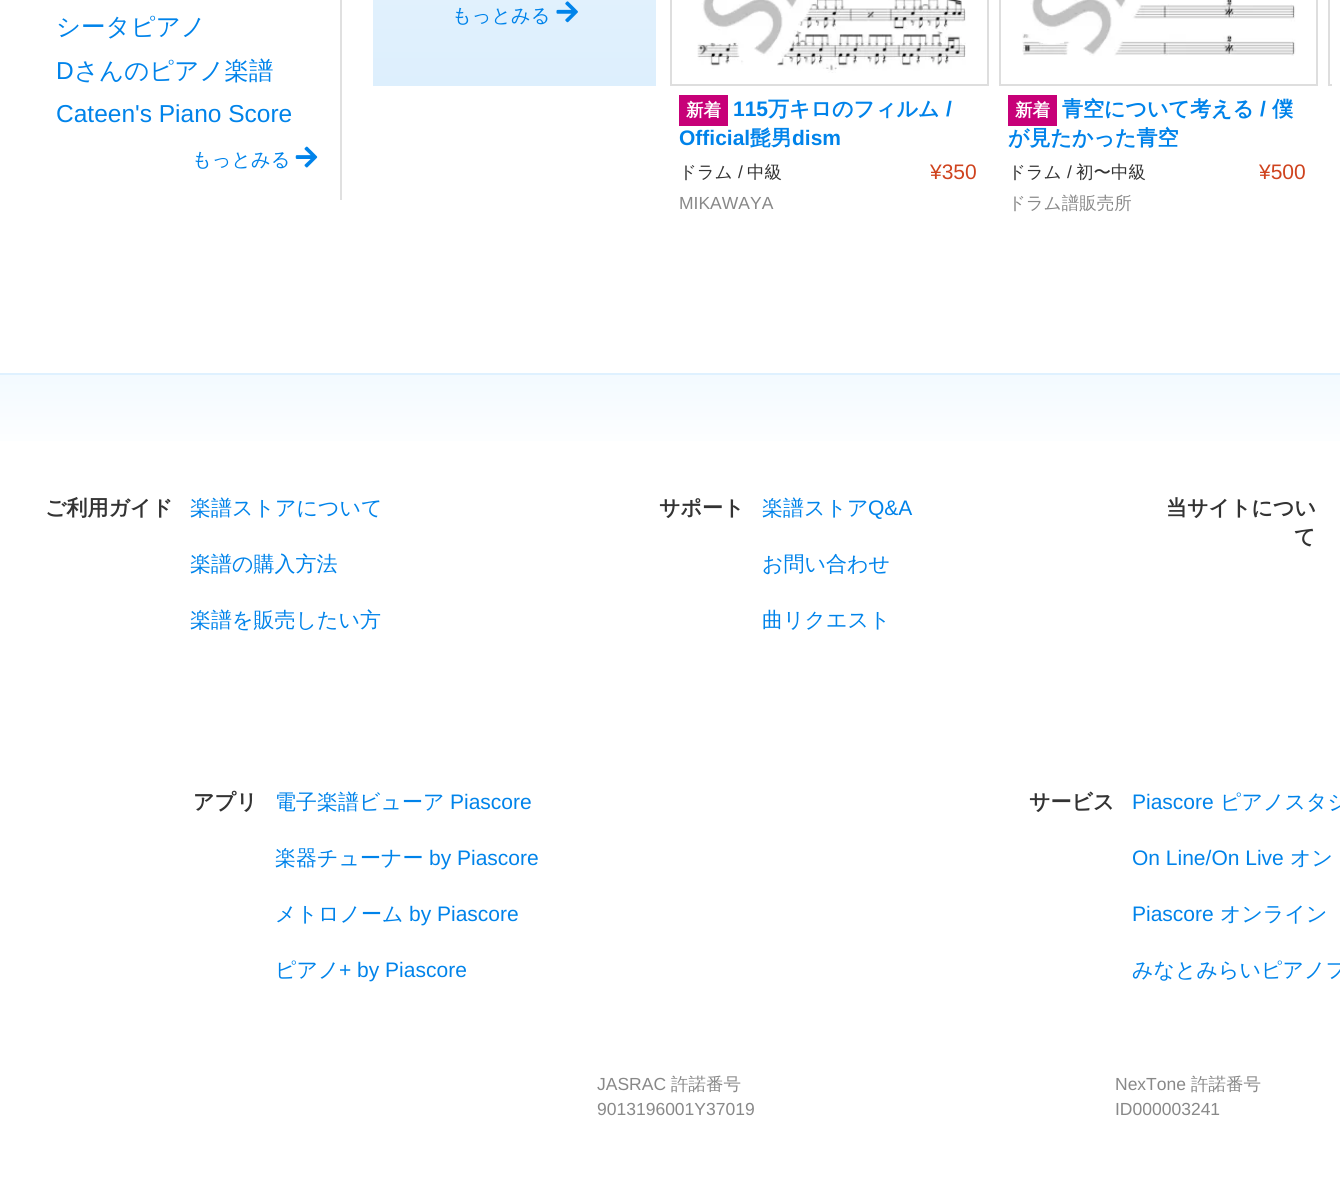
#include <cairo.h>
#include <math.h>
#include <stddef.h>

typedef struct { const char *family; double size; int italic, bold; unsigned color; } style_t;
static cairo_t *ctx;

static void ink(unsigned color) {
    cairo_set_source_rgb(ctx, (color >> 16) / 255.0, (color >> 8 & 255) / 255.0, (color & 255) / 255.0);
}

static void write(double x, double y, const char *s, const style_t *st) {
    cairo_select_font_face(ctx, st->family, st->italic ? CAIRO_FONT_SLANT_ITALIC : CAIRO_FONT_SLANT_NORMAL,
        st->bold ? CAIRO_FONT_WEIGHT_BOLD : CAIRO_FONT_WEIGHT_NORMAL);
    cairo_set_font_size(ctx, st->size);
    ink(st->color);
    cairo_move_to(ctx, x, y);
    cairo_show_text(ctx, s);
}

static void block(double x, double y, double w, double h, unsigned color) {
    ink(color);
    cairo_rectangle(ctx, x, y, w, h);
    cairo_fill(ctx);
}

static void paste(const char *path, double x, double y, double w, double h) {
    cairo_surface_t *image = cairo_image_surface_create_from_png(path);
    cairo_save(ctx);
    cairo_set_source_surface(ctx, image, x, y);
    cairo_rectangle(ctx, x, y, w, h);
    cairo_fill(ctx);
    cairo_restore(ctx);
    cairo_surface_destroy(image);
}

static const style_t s1 = {"WenQuanYi Zen Hei Medium", 24.5, 0, 0, 0x0083ea};
static const style_t s2 = {"Liberation Sans", 24.5, 0, 0, 0x0083ea};
static const style_t s3 = {"WenQuanYi Zen Hei Medium", 19.25, 0, 0, 0x0083ea};
static const style_t s4 = {"WenQuanYi Zen Hei", 17.5, 0, 1, 0xffffff};
static const style_t s5 = {"Liberation Sans", 21, 0, 1, 0x0083ea};
static const style_t s6 = {"WenQuanYi Zen Hei", 21, 0, 1, 0x0083ea};
static const style_t s7 = {"WenQuanYi Zen Hei Medium", 17.5, 0, 0, 0x333333};
static const style_t s8 = {"Liberation Sans", 17.5, 0, 0, 0x333333};
static const style_t s9 = {"Liberation Sans", 21, 0, 0, 0xcf431e};
static const style_t s10 = {"Liberation Sans", 17.5, 0, 0, 0x888888};
static const style_t s11 = {"WenQuanYi Zen Hei Medium", 17.5, 0, 0, 0x888888};
static const style_t s12 = {"WenQuanYi Zen Hei", 21, 0, 1, 0x333333};
static const style_t s13 = {"WenQuanYi Zen Hei Medium", 21, 0, 0, 0x0083ea};
static const style_t s14 = {"Liberation Sans", 21, 0, 0, 0x0083ea};

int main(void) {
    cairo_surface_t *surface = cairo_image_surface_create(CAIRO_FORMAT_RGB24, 1340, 1177);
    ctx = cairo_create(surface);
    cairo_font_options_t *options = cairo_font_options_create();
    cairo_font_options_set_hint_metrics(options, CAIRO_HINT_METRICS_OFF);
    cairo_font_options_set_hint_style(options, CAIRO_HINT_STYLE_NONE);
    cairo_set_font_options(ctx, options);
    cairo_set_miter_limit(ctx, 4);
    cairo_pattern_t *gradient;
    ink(0xffffff);
    cairo_paint(ctx);
    block(340, 0, 2, 200, 0xe0e0e0);
    write(56, 35, "シータピアノ", &s1);
    write(56, 79, "D", &s2);
    write(74, 79, "さんのピアノ楽譜", &s1);
    write(56, 122, "Cateen's Piano Score", &s2);
    write(192, 166, "もっとみる", &s3);
    paste("pic1.png", 295, 146, 23, 22);
    gradient = cairo_pattern_create_linear(515, -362, 515, 86);
    cairo_pattern_add_color_stop_rgba(gradient, 0, 0.941, 0.973, 1, 1);
    cairo_pattern_add_color_stop_rgba(gradient, 1, 0.867, 0.937, 0.992, 1);
    cairo_set_source(ctx, gradient);
    cairo_pattern_destroy(gradient);
    cairo_rectangle(ctx, 373, 0, 283, 86);
    cairo_fill(ctx);
    write(452, 22, "もっとみる", &s3);
    paste("pic2.png", 556, 1, 22, 22);
    cairo_save(ctx);
    cairo_rectangle(ctx, 670, 0, 662, 268);
    cairo_clip(ctx);
    cairo_rectangle(ctx, 1329, -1, 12, 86);
    ink(0xdedede);
    cairo_stroke(ctx);
    cairo_restore(ctx);
    cairo_rectangle(ctx, 671, -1, 317, 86);
    ink(0xdedede);
    cairo_stroke(ctx);
    paste("pic3.png", 697, 0, 269, 73);
    block(679, 95, 49, 31, 0xc70078);
    write(686, 116, "新着", &s4);
    write(733, 116, "115", &s5);
    write(768, 116, "万キロのフィルム", &s6);
    write(946, 116, "/", &s5);
    write(679, 145, "Official", &s5);
    write(750, 145, "髭男", &s6);
    write(792, 145, "dism", &s5);
    write(679, 178, "ドラム", &s7);
    write(738, 178, "/", &s8);
    write(747, 178, "中級", &s7);
    write(930, 179, "¥350", &s9);
    write(679, 209, "MIKAWAYA", &s10);
    cairo_rectangle(ctx, 1000, -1, 317, 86);
    ink(0xdedede);
    cairo_stroke(ctx);
    paste("pic4.png", 1022, 0, 274, 56);
    block(1008, 95, 49, 31, 0xc70078);
    write(1015, 116, "新着", &s4);
    write(1062, 116, "青空について考える", &s6);
    write(1260, 116, "/", &s5);
    write(1272, 116, "僕", &s6);
    write(1008, 145, "が見たかった青空", &s6);
    write(1008, 178, "ドラム", &s7);
    write(1067, 178, "/", &s8);
    write(1076, 178, "初〜中級", &s7);
    write(1259, 179, "¥500", &s9);
    write(1008, 209, "ドラム譜販売所", &s11);
    gradient = cairo_pattern_create_linear(670, 374, 670, 459);
    cairo_pattern_add_color_stop_rgba(gradient, 0, 0.953, 0.98, 1, 1);
    cairo_pattern_add_color_stop_rgba(gradient, 1, 1, 1, 1, 1);
    cairo_set_source(ctx, gradient);
    cairo_pattern_destroy(gradient);
    cairo_rectangle(ctx, 0, 375, 1340, 66);
    cairo_fill(ctx);
    block(0, 373, 1340, 2, 0xdff1ff);
    write(45, 515, "ご利用ガイド", &s12);
    write(190, 515, "楽譜ストアについて", &s13);
    write(190, 571, "楽譜の購入方法", &s13);
    write(190, 627, "楽譜を販売したい方", &s13);
    write(659, 515, "サポート", &s12);
    write(762, 515, "楽譜ストア", &s13);
    write(868, 515, "Q&A", &s14);
    write(762, 571, "お問い合わせ", &s13);
    write(762, 627, "曲リクエスト", &s13);
    write(1166, 515, "当サイトについ", &s12);
    write(1294, 544, "て", &s12);
    write(193, 809, "アプリ", &s12);
    write(275, 809, "電子楽譜ビューア", &s13);
    write(450, 809, "Piascore", &s14);
    write(275, 865, "楽器チューナー", &s13);
    write(429, 865, "by Piascore", &s14);
    write(275, 921, "メトロノーム", &s13);
    write(409, 921, "by Piascore", &s14);
    write(275, 977, "ピアノ", &s13);
    write(339, 977, "+ by Piascore", &s14);
    write(1029, 809, "サービス", &s12);
    write(1132, 809, "Piascore", &s14);
    write(1220, 809, "ピアノスタジ", &s13);
    write(1132, 865, "On Line/On Live", &s14);
    write(1290, 865, "オン", &s13);
    write(1132, 921, "Piascore", &s14);
    write(1220, 921, "オンライン", &s13);
    write(1132, 977, "みなとみらいピアノフ", &s13);
    write(597, 1090, "JASRAC", &s10);
    write(671, 1090, "許諾番号", &s11);
    write(597, 1115, "9013196001Y37019", &s10);
    write(1115, 1090, "NexTone", &s10);
    write(1191, 1090, "許諾番号", &s11);
    write(1115, 1115, "ID000003241", &s10);
    cairo_surface_write_to_png(surface, "screenshot.png");
    cairo_font_options_destroy(options);
    cairo_destroy(ctx);
    cairo_surface_destroy(surface);
    return 0;
}
